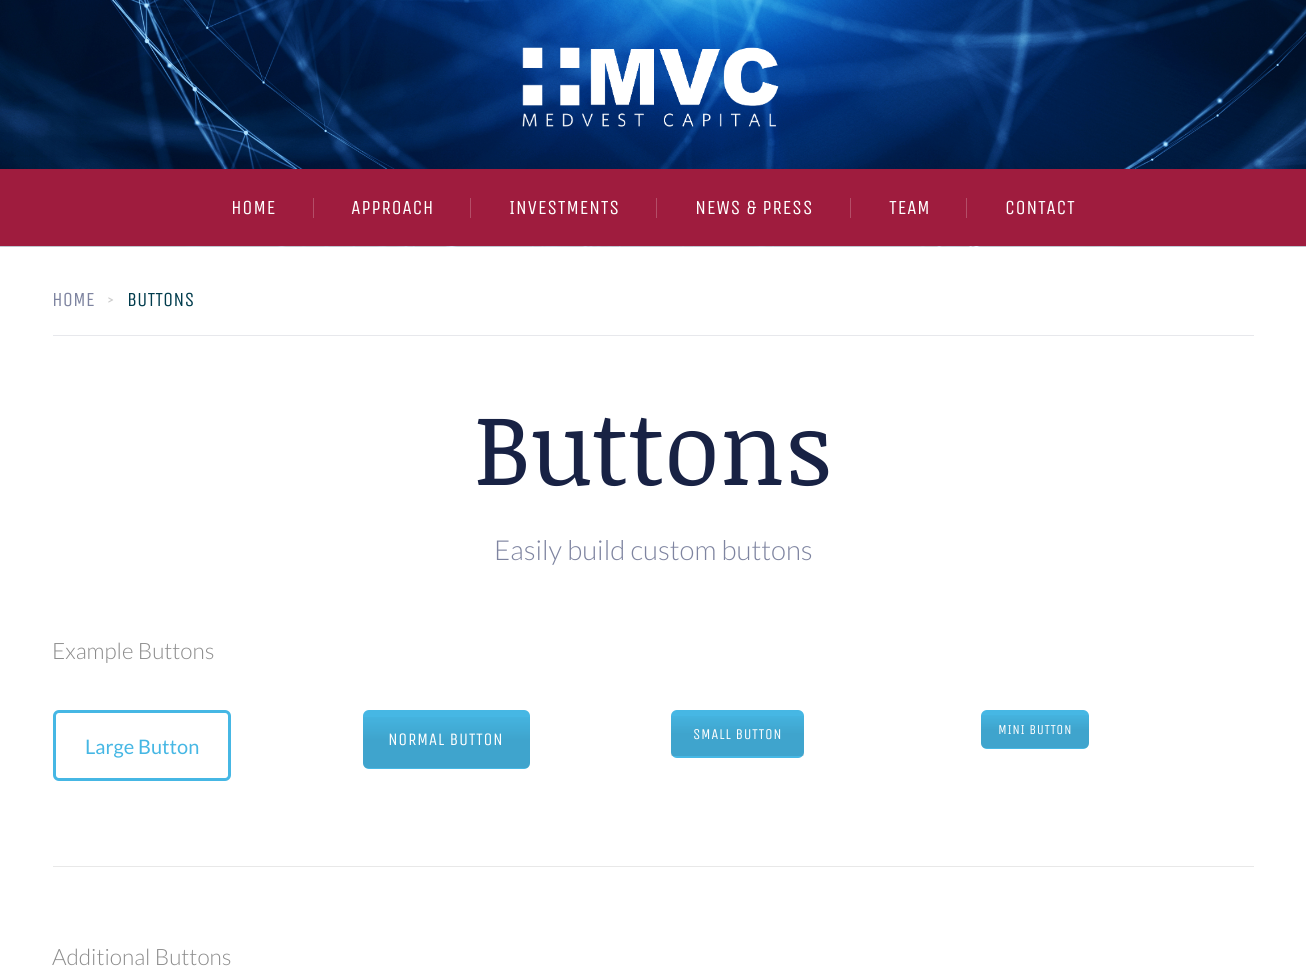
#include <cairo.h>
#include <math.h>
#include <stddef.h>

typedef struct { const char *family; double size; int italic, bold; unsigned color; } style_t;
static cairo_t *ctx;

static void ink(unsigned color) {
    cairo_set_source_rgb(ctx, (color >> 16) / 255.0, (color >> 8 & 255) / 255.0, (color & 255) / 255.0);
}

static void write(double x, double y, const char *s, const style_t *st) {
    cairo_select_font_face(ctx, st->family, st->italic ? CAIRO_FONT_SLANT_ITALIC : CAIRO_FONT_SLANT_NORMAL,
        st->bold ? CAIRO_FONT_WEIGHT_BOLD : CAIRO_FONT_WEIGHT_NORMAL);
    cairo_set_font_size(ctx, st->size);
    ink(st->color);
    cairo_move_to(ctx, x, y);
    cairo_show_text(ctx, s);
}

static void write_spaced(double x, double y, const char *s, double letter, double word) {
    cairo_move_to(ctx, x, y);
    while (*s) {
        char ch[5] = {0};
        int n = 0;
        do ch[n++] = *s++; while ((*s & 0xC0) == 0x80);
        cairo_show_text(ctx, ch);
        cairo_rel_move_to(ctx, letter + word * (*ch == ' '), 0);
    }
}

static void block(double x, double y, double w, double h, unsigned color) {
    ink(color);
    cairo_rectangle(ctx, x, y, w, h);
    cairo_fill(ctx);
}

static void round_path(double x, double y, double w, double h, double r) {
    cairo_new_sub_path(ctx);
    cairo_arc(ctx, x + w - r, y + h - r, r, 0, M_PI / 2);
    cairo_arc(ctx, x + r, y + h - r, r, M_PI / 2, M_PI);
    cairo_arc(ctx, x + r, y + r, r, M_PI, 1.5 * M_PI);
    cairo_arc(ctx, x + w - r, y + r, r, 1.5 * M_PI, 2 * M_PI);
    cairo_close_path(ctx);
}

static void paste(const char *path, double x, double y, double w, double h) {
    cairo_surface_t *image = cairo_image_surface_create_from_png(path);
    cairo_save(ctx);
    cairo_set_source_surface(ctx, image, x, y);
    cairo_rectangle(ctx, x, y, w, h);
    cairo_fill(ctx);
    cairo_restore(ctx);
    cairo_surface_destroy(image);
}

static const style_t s1 = {"Unica One", 20, 0, 0, 0x7e84a0};
static const style_t s2 = {"Lato", 12, 0, 1, 0xcccccc};
static const style_t s3 = {"Unica One", 20, 0, 0, 0x003b4c};
static const style_t s4 = {"Noticia Text", 100, 0, 0, 0x182244};
static const style_t s5 = {"Lato Light", 27.5, 0, 0, 0x7e84a0};
static const style_t s6 = {"Lato Light", 22.5, 0, 0, 0x8b8b8b};
static const style_t s7 = {"Lato", 20, 0, 0, 0x46b7e4};

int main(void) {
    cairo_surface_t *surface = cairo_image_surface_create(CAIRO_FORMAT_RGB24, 1306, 969);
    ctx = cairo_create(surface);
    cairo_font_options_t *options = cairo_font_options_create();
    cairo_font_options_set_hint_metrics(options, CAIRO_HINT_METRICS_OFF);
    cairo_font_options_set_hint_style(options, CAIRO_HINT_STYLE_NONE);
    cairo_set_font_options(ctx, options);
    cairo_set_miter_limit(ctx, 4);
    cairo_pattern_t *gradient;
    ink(0xffffff);
    cairo_paint(ctx);
    paste("pic1.png", 0, 0, 1306, 247);
    paste("pic2.png", 522, 47, 257, 80);
    block(0, 169, 1306, 77, 0x9f1c3e);
    cairo_select_font_face(ctx, "Unica One", CAIRO_FONT_SLANT_NORMAL, CAIRO_FONT_WEIGHT_NORMAL);
    cairo_set_font_size(ctx, 20);
    ink(0xffffff);
    write_spaced(231, 214, "HOME", 0.6, 0);
    block(313, 198, 1, 20, 0xb44e68);
    ink(0xffffff);
    write_spaced(351, 214, "APPROACH", 0.6, 0);
    block(470, 198, 1, 20, 0xb44e68);
    ink(0xffffff);
    write_spaced(509, 214, "INVESTMENTS", 0.6, 0);
    block(656, 198, 1, 20, 0xb44e68);
    ink(0xffffff);
    write_spaced(695, 214, "NEWS & PRESS", 0.6, 0);
    block(850, 198, 1, 20, 0xb44e68);
    ink(0xffffff);
    write_spaced(889, 214, "TEAM", 0.6, 0);
    block(966, 198, 1, 20, 0xb44e68);
    ink(0xffffff);
    write_spaced(1005, 214, "CONTACT", 0.6, 0);
    block(53, 335, 1201, 1, 0xe7e8ec);
    write(52, 306, "HOME", &s1);
    write(107, 304, ">", &s2);
    write(127, 306, "BUTTONS", &s3);
    write(474, 485, "Buttons", &s4);
    write(494, 560, "Easily build custom buttons", &s5);
    write(52, 659, "Example Buttons", &s6);
    round_path(54.5, 711.5, 175, 68, 4.5);
    ink(0x46b7e4);
    cairo_set_line_width(ctx, 3);
    cairo_stroke(ctx);
    write(85, 754, "Large Button", &s7);
    round_path(363, 710, 167, 59, 6);
    cairo_fill(ctx);
    cairo_save(ctx);
    round_path(363, 710, 167, 59, 6);
    cairo_clip(ctx);
    gradient = cairo_pattern_create_linear(529, 711, 529, 768);
    cairo_pattern_add_color_stop_rgba(gradient, 0, 0, 0, 0, 0);
    cairo_pattern_add_color_stop_rgba(gradient, 0.5, 0, 0, 0, 0.1);
    cairo_pattern_add_color_stop_rgba(gradient, 1, 0, 0, 0, 0.1);
    cairo_set_source(ctx, gradient);
    cairo_pattern_destroy(gradient);
    cairo_rectangle(ctx, 363, 717, 167, 51);
    cairo_fill(ctx);
    cairo_restore(ctx);
    cairo_select_font_face(ctx, "Unica One", CAIRO_FONT_SLANT_NORMAL, CAIRO_FONT_WEIGHT_NORMAL);
    cairo_set_font_size(ctx, 17.5);
    ink(0xffffff);
    write_spaced(388, 745, "NORMAL BUTTON", 0.6, 0);
    ink(0x46b7e4);
    round_path(671, 710, 133, 48, 6);
    cairo_fill(ctx);
    gradient = cairo_pattern_create_linear(803, 711, 803, 756);
    cairo_pattern_add_color_stop_rgba(gradient, 0, 0, 0, 0, 0);
    cairo_pattern_add_color_stop_rgba(gradient, 0.5, 0, 0, 0, 0.1);
    cairo_pattern_add_color_stop_rgba(gradient, 1, 0, 0, 0, 0.1);
    cairo_set_source(ctx, gradient);
    cairo_pattern_destroy(gradient);
    cairo_rectangle(ctx, 671, 716, 133, 40);
    cairo_fill(ctx);
    cairo_set_font_size(ctx, 15);
    ink(0xffffff);
    write_spaced(693, 739, "SMALL BUTTON", 0.6, 0);
    ink(0x46b7e4);
    round_path(981, 710, 108, 39, 6);
    cairo_fill(ctx);
    cairo_save(ctx);
    round_path(981, 710, 108, 39, 6);
    cairo_clip(ctx);
    gradient = cairo_pattern_create_linear(1088, 711, 1088, 748);
    cairo_pattern_add_color_stop_rgba(gradient, 0, 0, 0, 0, 0);
    cairo_pattern_add_color_stop_rgba(gradient, 0.5, 0, 0, 0, 0.1);
    cairo_pattern_add_color_stop_rgba(gradient, 1, 0, 0, 0, 0.1);
    cairo_set_source(ctx, gradient);
    cairo_pattern_destroy(gradient);
    cairo_rectangle(ctx, 981, 715, 108, 33);
    cairo_fill(ctx);
    cairo_restore(ctx);
    cairo_set_font_size(ctx, 13.75);
    ink(0xffffff);
    write_spaced(998, 734, "MINI BUTTON", 0.6, 0);
    block(53, 866, 1201, 1, 0xe8e8e8);
    write(52, 965, "Additional Buttons", &s6);
    cairo_surface_write_to_png(surface, "screenshot.png");
    cairo_font_options_destroy(options);
    cairo_destroy(ctx);
    cairo_surface_destroy(surface);
    return 0;
}
